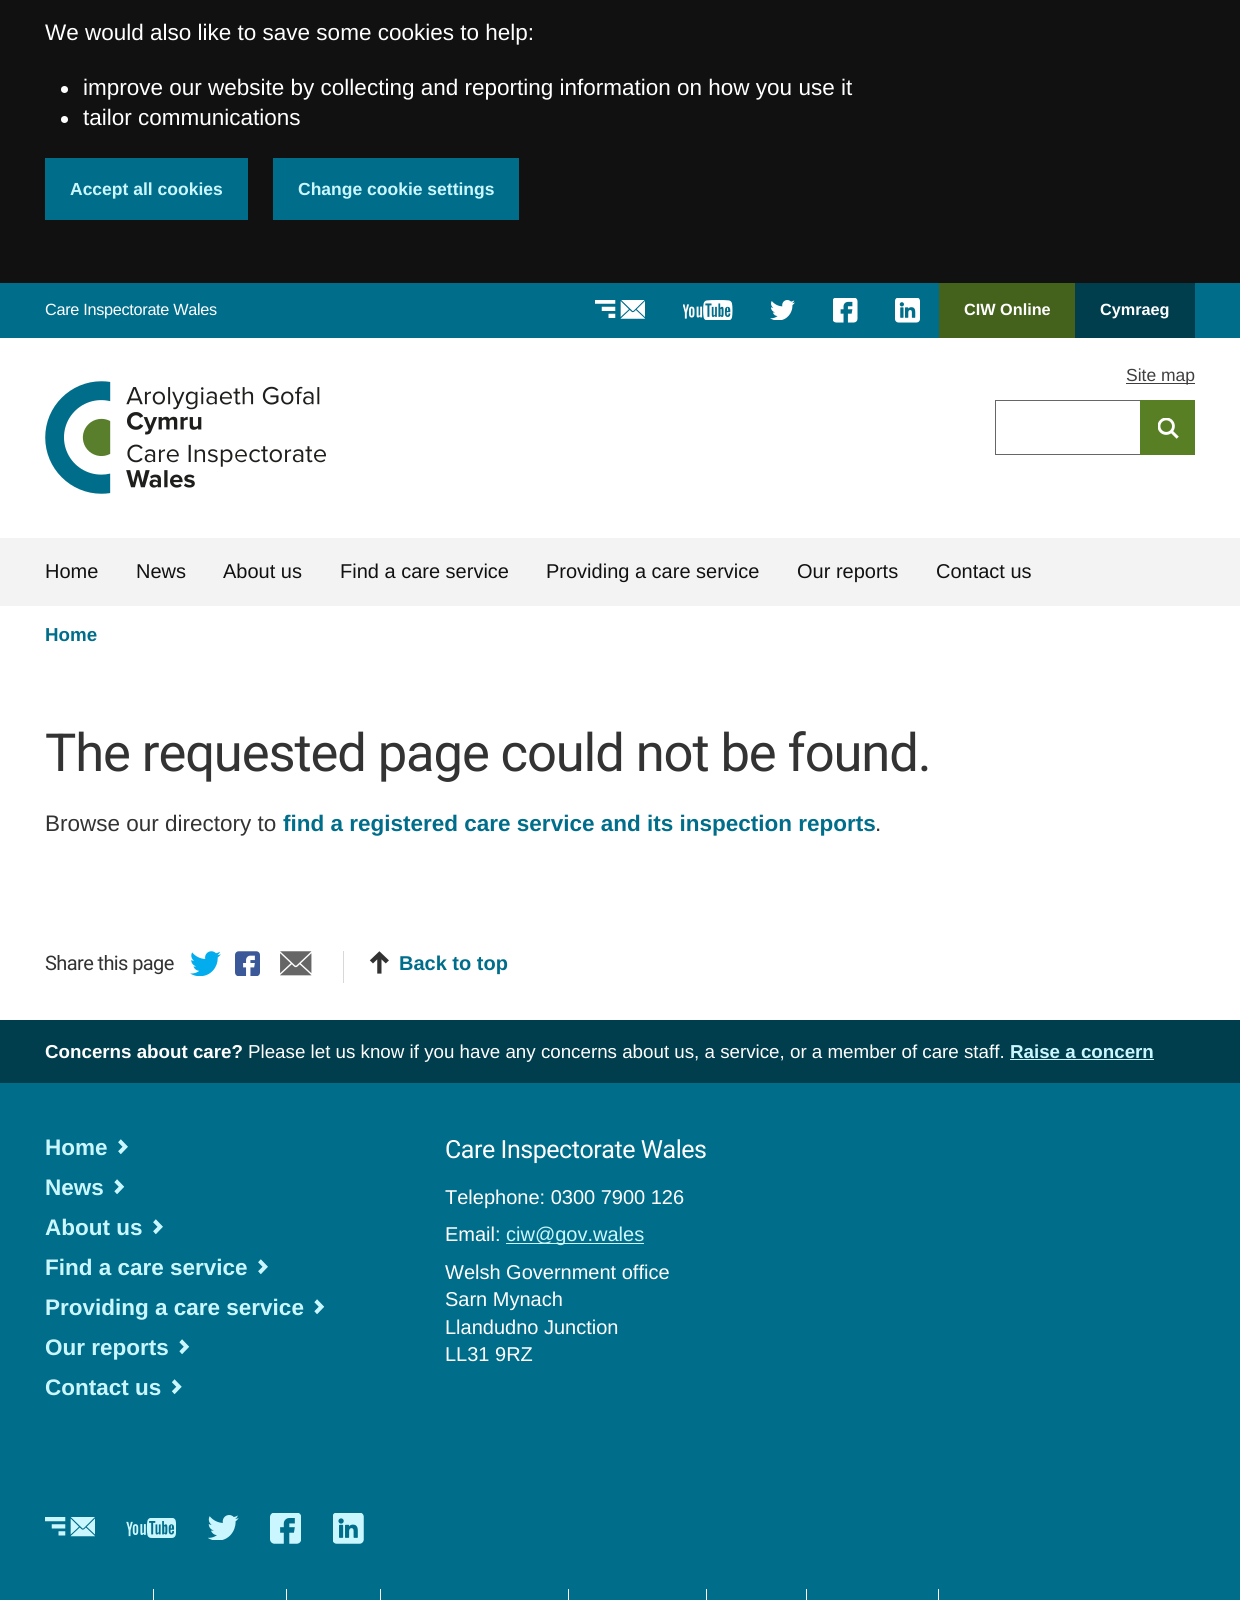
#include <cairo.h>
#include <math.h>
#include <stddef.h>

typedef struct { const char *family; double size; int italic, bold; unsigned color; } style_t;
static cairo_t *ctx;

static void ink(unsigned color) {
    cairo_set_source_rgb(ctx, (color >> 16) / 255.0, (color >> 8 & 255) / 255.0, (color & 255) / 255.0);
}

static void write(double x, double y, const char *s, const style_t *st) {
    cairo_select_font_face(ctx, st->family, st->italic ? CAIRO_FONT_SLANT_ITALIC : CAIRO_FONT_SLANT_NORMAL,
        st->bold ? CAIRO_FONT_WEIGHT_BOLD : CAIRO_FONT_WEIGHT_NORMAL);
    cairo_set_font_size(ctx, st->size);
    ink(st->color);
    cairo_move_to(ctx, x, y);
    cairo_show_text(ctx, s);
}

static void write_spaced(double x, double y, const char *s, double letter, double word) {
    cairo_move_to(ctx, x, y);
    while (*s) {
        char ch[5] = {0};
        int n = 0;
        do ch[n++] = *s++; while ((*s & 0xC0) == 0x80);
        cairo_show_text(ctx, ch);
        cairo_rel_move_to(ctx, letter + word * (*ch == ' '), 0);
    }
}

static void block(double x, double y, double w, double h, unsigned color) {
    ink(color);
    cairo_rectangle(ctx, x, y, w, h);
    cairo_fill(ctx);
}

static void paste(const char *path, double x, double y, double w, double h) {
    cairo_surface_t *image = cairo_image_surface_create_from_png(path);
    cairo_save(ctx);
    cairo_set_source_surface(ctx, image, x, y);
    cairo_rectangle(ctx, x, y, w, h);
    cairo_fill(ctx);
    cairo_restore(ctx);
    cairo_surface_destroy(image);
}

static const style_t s1 = {"Liberation Sans", 22.5, 0, 0, 0xffffff};
static const style_t s2 = {"Liberation Sans", 17.5, 0, 1, 0xcaf7ff};
static const style_t s3 = {"Liberation Sans", 16.25, 0, 1, 0xffffff};
static const style_t s4 = {"Liberation Sans", 17.5, 0, 0, 0x403e3e};
static const style_t s5 = {"Liberation Sans", 20, 0, 0, 0x111111};
static const style_t s6 = {"Liberation Sans", 18.75, 0, 1, 0x006d8a};
static const style_t s7 = {"Liberation Sans", 22.5, 0, 0, 0x333333};
static const style_t s8 = {"Liberation Sans", 22.5, 0, 1, 0x006d8a};
static const style_t s9 = {"Liberation Sans", 20, 0, 1, 0x006d8a};
static const style_t s10 = {"Liberation Sans", 18.75, 0, 1, 0xffffff};
static const style_t s11 = {"Liberation Sans", 18.75, 0, 0, 0xffffff};
static const style_t s12 = {"Liberation Sans", 18.75, 0, 1, 0xcaf7ff};
static const style_t s13 = {"Liberation Sans", 22.5, 0, 1, 0xcaf7ff};
static const style_t s14 = {"Liberation Sans", 20, 0, 0, 0xffffff};
static const style_t s15 = {"Liberation Sans", 20, 0, 0, 0xcaf7ff};

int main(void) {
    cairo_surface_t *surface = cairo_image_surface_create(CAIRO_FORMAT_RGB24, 1240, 1600);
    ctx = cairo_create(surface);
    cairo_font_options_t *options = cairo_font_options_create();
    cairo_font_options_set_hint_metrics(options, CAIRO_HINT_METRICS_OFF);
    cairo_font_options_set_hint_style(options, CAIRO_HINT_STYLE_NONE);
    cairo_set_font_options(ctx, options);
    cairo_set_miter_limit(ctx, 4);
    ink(0xffffff);
    cairo_paint(ctx);
    block(0, 0, 1240, 283, 0x111111);
    write(45, 40, "We would also like to save some cookies to help:", &s1);
    cairo_new_path(ctx);
    cairo_arc(ctx, 64.5, 89.5, 3.5, 0, 2 * M_PI);
    cairo_fill(ctx);
    write(83, 95, "improve our website by collecting and reporting information on how you use it", &s1);
    cairo_new_path(ctx);
    cairo_arc(ctx, 64.5, 119.5, 3.5, 0, 2 * M_PI);
    cairo_fill(ctx);
    write(83, 125, "tailor communications", &s1);
    block(45, 158, 203, 62, 0x006d8a);
    write(70, 195, "Accept all cookies", &s2);
    block(273, 158, 246, 62, 0x006d8a);
    write(298, 195, "Change cookie settings", &s2);
    block(0, 283, 1240, 55, 0x006d8a);
    cairo_select_font_face(ctx, "Liberation Sans", CAIRO_FONT_SLANT_NORMAL, CAIRO_FONT_WEIGHT_NORMAL);
    cairo_set_font_size(ctx, 16.25);
    ink(0xffffff);
    write_spaced(45, 315, "Care Inspectorate Wales", -0.3, 0);
    paste("pic1.png", 595, 300, 50, 19);
    paste("pic2.png", 683, 300, 50, 20);
    paste("pic3.png", 770, 300, 25, 20);
    paste("pic4.png", 833, 298, 25, 25);
    paste("pic5.png", 895, 298, 25, 25);
    block(939, 283, 136, 55, 0x44621c);
    write(964, 315, "CIW Online", &s3);
    block(1075, 283, 120, 55, 0x003d4d);
    write(1100, 315, "Cymraeg", &s3);
    block(1126, 383, 69, 1, 0x403e3e);
    write(1126, 381, "Site map", &s4);
    cairo_rectangle(ctx, 995.5, 400.5, 199, 54);
    ink(0x666666);
    cairo_set_line_width(ctx, 1);
    cairo_stroke(ctx);
    block(1140, 400, 55, 55, 0x597f24);
    paste("pic6.png", 1158, 418, 21, 21);
    paste("pic7.png", 45, 381, 281, 113);
    block(0, 538, 1240, 68, 0xf3f3f3);
    write(45, 578, "Home", &s5);
    write(136, 578, "News", &s5);
    write(223, 578, "About us", &s5);
    write(340, 578, "Find a care service", &s5);
    write(546, 578, "Providing a care service", &s5);
    write(797, 578, "Our reports", &s5);
    write(936, 578, "Contact us", &s5);
    write(45, 641, "Home", &s6);
    cairo_select_font_face(ctx, "Roboto", CAIRO_FONT_SLANT_NORMAL, CAIRO_FONT_WEIGHT_NORMAL);
    cairo_set_font_size(ctx, 52.5);
    ink(0x333333);
    write_spaced(45, 771, "The requested page could not be found.", -1.1, 0);
    write(45, 831, "Browse our directory to", &s7);
    write(283, 831, "find a registered care service and its inspection reports", &s8);
    write(875, 831, ".", &s7);
    cairo_select_font_face(ctx, "Roboto", CAIRO_FONT_SLANT_NORMAL, CAIRO_FONT_WEIGHT_NORMAL);
    cairo_set_font_size(ctx, 20);
    write_spaced(45, 970, "Share this page", -0.6, 0);
    paste("pic8.png", 190, 951, 31, 25);
    paste("pic9.png", 235, 951, 25, 25);
    paste("pic10.png", 280, 951, 32, 25);
    block(343, 951, 1, 32, 0xd8d8d8);
    paste("pic11.png", 369, 951, 20, 23);
    write(399, 970, "Back to top", &s9);
    block(0, 1020, 1240, 63, 0x003d4d);
    write(45, 1058, "Concerns about care?", &s10);
    write(248, 1058, "Please let us know if you have any concerns about us, a service, or a member of care staff.", &s11);
    write(1010, 1058, "Raise a concern", &s12);
    block(1010, 1059, 144, 1, 0xcaf7ff);
    block(0, 1083, 1240, 517, 0x006d8a);
    write(45, 1155, "Home", &s13);
    paste("pic12.png", 118, 1139, 10, 16);
    write(45, 1195, "News", &s13);
    paste("pic13.png", 114, 1179, 11, 16);
    write(45, 1235, "About us", &s13);
    paste("pic12.png", 153, 1219, 10, 16);
    write(45, 1275, "Find a care service", &s13);
    paste("pic12.png", 258, 1259, 10, 16);
    write(45, 1315, "Providing a care service", &s13);
    paste("pic13.png", 314, 1299, 11, 16);
    write(45, 1355, "Our reports", &s13);
    paste("pic13.png", 179, 1339, 11, 16);
    write(45, 1395, "Contact us", &s13);
    paste("pic14.png", 172, 1379, 10, 16);
    cairo_select_font_face(ctx, "Roboto", CAIRO_FONT_SLANT_NORMAL, CAIRO_FONT_WEIGHT_NORMAL);
    cairo_set_font_size(ctx, 25);
    ink(0xffffff);
    write_spaced(445, 1158, "Care Inspectorate Wales", -0.45, 0);
    write(445, 1204, "Telephone: 0300 7900 126", &s14);
    write(445, 1241, "Email:", &s14);
    block(506, 1243, 138, 1, 0xcaf7ff);
    write(506, 1241, "ciw@gov.wales", &s15);
    write(445, 1279, "Welsh Government office", &s14);
    write(445, 1306, "Sarn Mynach", &s14);
    write(445, 1334, "Llandudno Junction", &s14);
    write(445, 1361, "LL31 9RZ", &s14);
    paste("pic15.png", 45, 1517, 50, 20);
    paste("pic16.png", 126, 1518, 50, 20);
    paste("pic17.png", 208, 1515, 31, 25);
    paste("pic18.png", 270, 1513, 31, 31);
    paste("pic19.png", 333, 1513, 31, 31);
    block(153, 1589, 1, 11, 0xffffff);
    block(286, 1589, 1, 11, 0xffffff);
    block(380, 1589, 1, 11, 0xffffff);
    block(568, 1589, 1, 11, 0xffffff);
    block(706, 1589, 1, 11, 0xffffff);
    block(806, 1589, 1, 11, 0xffffff);
    block(938, 1589, 1, 11, 0xffffff);
    cairo_surface_write_to_png(surface, "screenshot.png");
    cairo_font_options_destroy(options);
    cairo_destroy(ctx);
    cairo_surface_destroy(surface);
    return 0;
}
